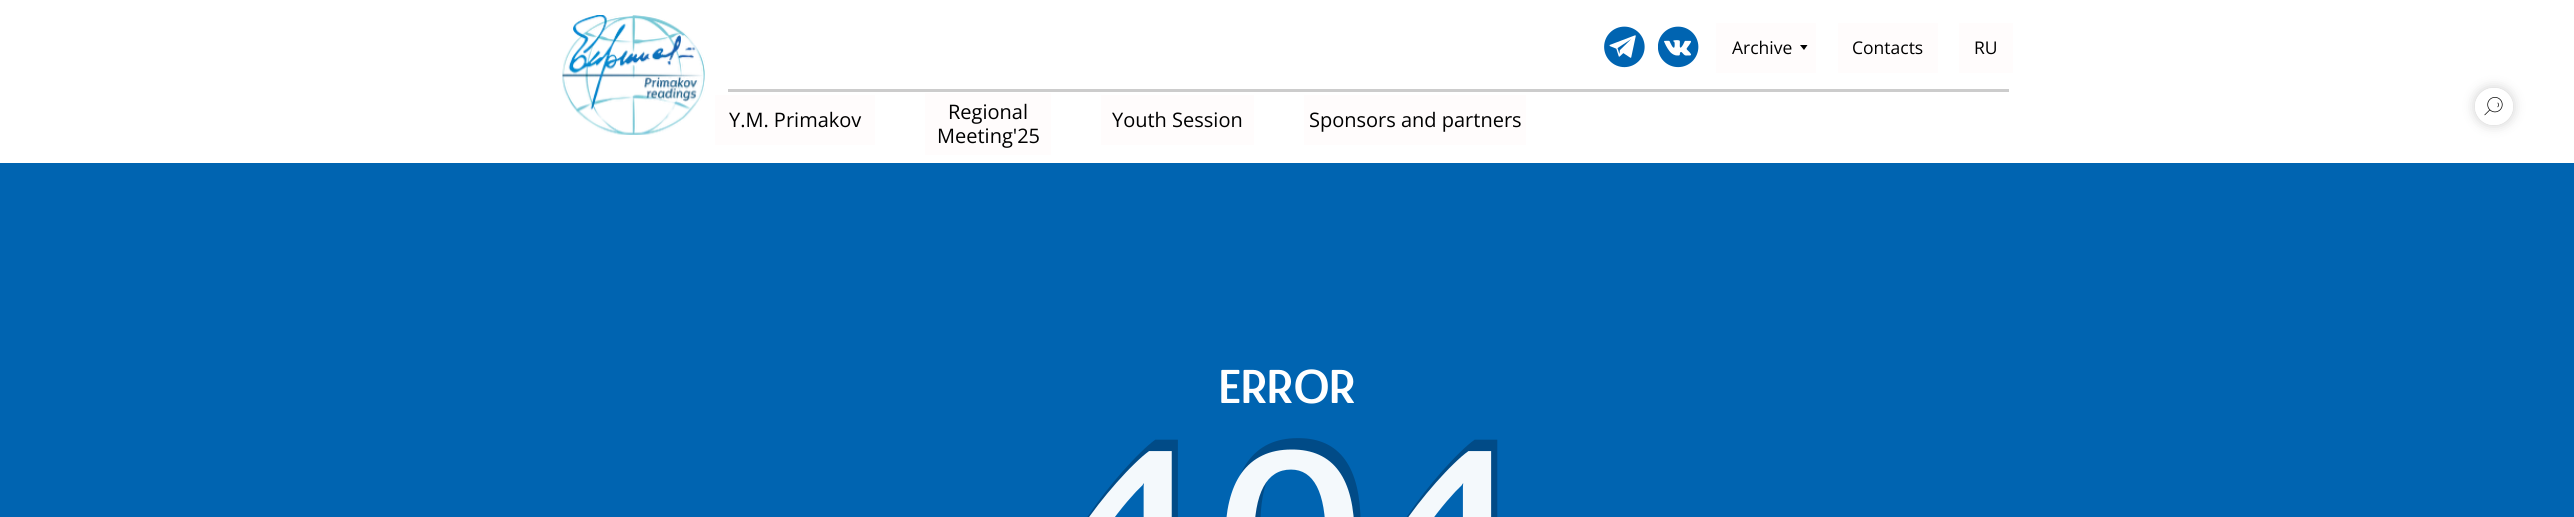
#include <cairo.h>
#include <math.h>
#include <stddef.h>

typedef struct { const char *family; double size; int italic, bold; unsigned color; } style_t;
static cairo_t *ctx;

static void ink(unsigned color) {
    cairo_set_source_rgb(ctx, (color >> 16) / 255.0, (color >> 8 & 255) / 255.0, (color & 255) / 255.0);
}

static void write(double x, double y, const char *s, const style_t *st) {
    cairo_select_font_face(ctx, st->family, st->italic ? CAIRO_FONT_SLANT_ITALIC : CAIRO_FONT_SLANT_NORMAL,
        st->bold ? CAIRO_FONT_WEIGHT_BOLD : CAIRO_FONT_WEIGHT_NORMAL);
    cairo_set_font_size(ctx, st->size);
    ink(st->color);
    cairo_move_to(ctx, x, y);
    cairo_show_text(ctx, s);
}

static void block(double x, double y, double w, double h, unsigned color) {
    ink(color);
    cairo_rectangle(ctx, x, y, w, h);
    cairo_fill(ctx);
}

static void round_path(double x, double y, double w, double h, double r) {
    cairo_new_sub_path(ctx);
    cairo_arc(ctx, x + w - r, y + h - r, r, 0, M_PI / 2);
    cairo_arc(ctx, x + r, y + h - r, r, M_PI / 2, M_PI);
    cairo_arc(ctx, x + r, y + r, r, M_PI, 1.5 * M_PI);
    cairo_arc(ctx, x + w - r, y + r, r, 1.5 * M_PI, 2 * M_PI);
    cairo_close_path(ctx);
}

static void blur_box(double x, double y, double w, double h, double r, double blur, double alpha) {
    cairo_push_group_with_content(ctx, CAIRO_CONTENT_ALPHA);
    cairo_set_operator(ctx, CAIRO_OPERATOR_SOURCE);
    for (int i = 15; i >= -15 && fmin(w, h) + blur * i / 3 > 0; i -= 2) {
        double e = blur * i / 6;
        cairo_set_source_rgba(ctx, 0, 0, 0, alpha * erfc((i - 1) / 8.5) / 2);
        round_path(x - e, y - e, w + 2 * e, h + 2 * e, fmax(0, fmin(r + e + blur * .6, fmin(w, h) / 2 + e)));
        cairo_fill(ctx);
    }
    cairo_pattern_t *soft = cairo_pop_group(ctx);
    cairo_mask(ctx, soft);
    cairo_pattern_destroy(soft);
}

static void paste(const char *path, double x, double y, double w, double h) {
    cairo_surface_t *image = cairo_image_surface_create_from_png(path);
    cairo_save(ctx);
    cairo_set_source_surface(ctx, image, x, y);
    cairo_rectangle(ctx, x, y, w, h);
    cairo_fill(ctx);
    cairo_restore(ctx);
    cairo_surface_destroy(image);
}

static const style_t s1 = {"Open Sans", 17.5, 0, 0, 0x000000};
static const style_t s2 = {"Open Sans", 20, 0, 0, 0x000000};
static const style_t s3 = {"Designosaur", 46, 0, 0, 0xffffff};

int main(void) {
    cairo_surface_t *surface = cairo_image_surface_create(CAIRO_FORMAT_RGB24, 2574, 517);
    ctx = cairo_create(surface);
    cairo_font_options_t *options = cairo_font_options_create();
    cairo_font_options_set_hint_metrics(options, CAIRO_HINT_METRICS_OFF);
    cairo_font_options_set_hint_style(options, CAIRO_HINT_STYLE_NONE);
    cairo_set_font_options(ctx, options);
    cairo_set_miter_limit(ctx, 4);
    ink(0xffffff);
    cairo_paint(ctx);
    paste("pic1.png", 562, 15, 143, 120);
    paste("pic2.png", 1604, 26, 41, 42);
    paste("pic3.png", 1658, 26, 41, 42);
    block(1716, 23, 100, 50, 0xfffcfc);
    write(1732, 54, "Archive", &s1);
    cairo_new_path(ctx);
    cairo_move_to(ctx, 1800, 45);
    cairo_line_to(ctx, 1807.5, 45);
    cairo_line_to(ctx, 1804, 50);
    cairo_close_path(ctx);
    cairo_fill(ctx);
    block(1838, 23, 100, 50, 0xfffcfc);
    write(1852, 54, "Contacts", &s1);
    block(1959, 23, 54, 50, 0xfffcfc);
    write(1974, 54, "RU", &s1);
    block(728, 89, 1281, 3, 0xcccccc);
    block(715, 95, 160, 50, 0xfffcfc);
    write(729, 127, "Y.M. Primakov", &s2);
    block(925, 93, 126, 62, 0xfffcfc);
    write(948, 119, "Regional", &s2);
    write(937, 143, "Meeting'25", &s2);
    block(1101, 95, 153, 50, 0xfffcfc);
    write(1112, 127, "Youth Session", &s2);
    block(1304, 95, 222, 50, 0xfffcfc);
    write(1309, 127, "Sponsors and partners", &s2);
    cairo_save(ctx);
    cairo_set_fill_rule(ctx, CAIRO_FILL_RULE_EVEN_ODD);
    cairo_new_path(ctx);
    cairo_move_to(ctx, 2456, 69);
    cairo_line_to(ctx, 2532, 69);
    cairo_line_to(ctx, 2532, 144);
    cairo_line_to(ctx, 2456, 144);
    cairo_close_path(ctx);
    cairo_move_to(ctx, 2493.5, 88);
    cairo_line_to(ctx, 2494.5, 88);
    cairo_curve_to(ctx, 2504.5, 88, 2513, 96.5, 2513, 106.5);
    cairo_curve_to(ctx, 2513, 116.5, 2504.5, 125, 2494.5, 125);
    cairo_line_to(ctx, 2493.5, 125);
    cairo_curve_to(ctx, 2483.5, 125, 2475, 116.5, 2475, 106.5);
    cairo_curve_to(ctx, 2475, 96.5, 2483.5, 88, 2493.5, 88);
    cairo_close_path(ctx);
    cairo_clip(ctx);
    ink(0x000000);
    blur_box(2475, 88, 38, 37, 18.5, 6, 0.2);
    cairo_restore(ctx);
    cairo_set_source_rgba(ctx, 1, 1, 1, 0.8);
    round_path(2475, 88, 38, 37, 18.5);
    cairo_fill(ctx);
    paste("pic4.png", 2484, 97, 19, 19);
    block(0, 163, 2574, 354, 0x0064b1);
    write(1219, 403, "ERROR", &s3);
    paste("pic5.png", 1087, 438, 411, 79);
    cairo_surface_write_to_png(surface, "screenshot.png");
    cairo_font_options_destroy(options);
    cairo_destroy(ctx);
    cairo_surface_destroy(surface);
    return 0;
}
